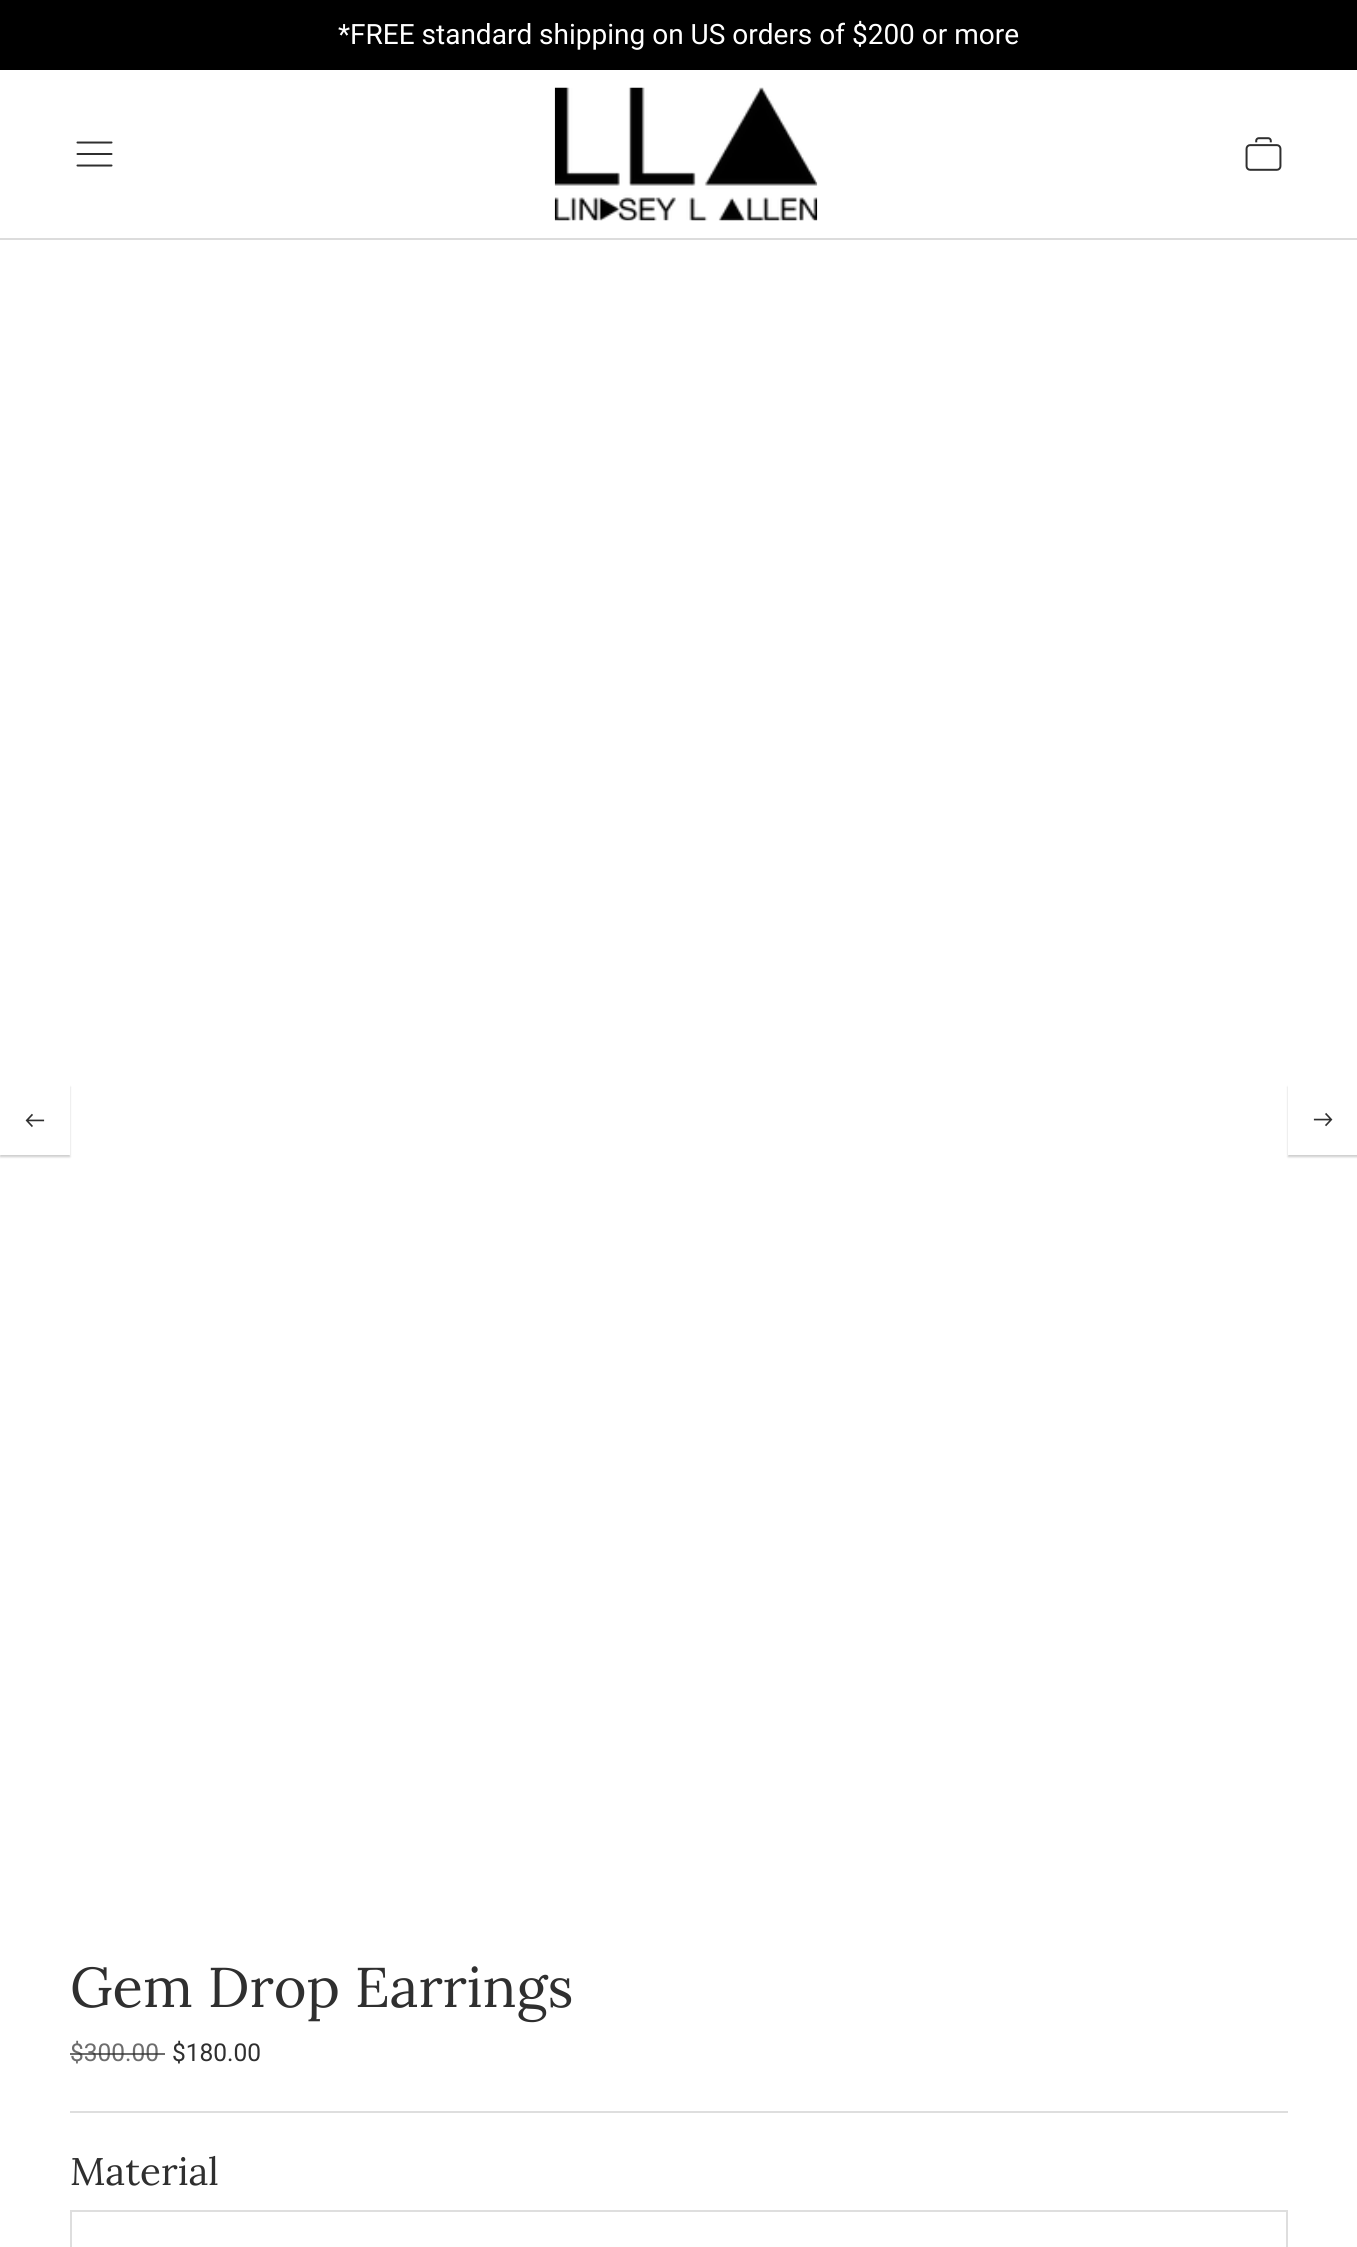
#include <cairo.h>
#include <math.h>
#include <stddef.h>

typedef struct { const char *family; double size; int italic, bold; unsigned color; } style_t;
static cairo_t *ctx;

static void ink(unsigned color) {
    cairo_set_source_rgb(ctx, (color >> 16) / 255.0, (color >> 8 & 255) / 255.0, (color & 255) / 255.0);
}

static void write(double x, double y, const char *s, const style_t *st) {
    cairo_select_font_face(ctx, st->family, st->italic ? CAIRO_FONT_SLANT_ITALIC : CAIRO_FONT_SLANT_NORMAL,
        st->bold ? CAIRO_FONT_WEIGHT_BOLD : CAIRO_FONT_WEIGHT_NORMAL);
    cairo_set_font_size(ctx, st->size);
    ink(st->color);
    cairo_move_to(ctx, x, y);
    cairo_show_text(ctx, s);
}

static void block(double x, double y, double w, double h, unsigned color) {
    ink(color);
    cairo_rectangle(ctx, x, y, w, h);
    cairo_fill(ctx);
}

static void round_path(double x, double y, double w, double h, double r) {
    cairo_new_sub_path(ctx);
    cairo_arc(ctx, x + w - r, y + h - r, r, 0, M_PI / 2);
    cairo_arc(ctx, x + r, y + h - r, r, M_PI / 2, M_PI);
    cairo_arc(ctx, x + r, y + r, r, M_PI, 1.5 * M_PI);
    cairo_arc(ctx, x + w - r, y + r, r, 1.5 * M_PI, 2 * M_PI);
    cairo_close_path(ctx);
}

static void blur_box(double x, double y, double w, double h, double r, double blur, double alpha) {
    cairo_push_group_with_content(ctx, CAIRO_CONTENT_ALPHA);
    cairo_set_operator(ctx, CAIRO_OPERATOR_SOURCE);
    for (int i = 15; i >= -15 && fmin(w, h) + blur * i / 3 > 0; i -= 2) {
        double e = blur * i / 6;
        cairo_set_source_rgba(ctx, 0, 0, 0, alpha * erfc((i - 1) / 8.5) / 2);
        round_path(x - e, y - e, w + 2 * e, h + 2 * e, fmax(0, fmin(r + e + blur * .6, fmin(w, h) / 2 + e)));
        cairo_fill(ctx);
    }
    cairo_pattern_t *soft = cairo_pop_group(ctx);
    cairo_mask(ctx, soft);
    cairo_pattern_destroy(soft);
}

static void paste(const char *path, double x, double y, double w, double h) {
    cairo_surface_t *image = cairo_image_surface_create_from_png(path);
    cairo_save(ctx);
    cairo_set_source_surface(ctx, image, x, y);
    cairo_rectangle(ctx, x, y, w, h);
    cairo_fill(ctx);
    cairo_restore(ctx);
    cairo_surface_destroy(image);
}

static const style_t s1 = {"Roboto", 28, 0, 0, 0xffffff};
static const style_t s2 = {"Lora", 56, 0, 0, 0x2f2f2f};
static const style_t s3 = {"Roboto", 24.5, 0, 0, 0x6d6d6d};
static const style_t s4 = {"Roboto", 24.5, 0, 0, 0x2f2f2f};
static const style_t s5 = {"Lora", 38.5, 0, 0, 0x2f2f2f};

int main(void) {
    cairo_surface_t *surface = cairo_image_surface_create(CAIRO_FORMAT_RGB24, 1357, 2247);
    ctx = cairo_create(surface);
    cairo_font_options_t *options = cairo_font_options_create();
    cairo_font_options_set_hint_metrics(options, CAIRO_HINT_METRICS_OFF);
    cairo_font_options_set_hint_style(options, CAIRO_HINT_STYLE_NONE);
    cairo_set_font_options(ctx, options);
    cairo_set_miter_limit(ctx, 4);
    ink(0xffffff);
    cairo_paint(ctx);
    block(0, 0, 1357, 70, 0x000000);
    write(338, 44, "*FREE standard shipping on US orders of $200 or more", &s1);
    block(0, 238, 1357, 2, 0xdcdcdc);
    cairo_new_path(ctx);
    cairo_move_to(ctx, 77.5, 154);
    cairo_line_to(ctx, 111.5, 154);
    cairo_move_to(ctx, 77.5, 142.5);
    cairo_line_to(ctx, 111.5, 142.5);
    cairo_move_to(ctx, 77.5, 165.5);
    cairo_line_to(ctx, 111.5, 165.5);
    ink(0x2f2f2f);
    cairo_set_line_cap(ctx, CAIRO_LINE_CAP_ROUND);
    cairo_set_line_join(ctx, CAIRO_LINE_JOIN_ROUND);
    cairo_stroke(ctx);
    paste("pic1.png", 554, 87, 264, 134);
    paste("pic2.png", 1245, 137, 37, 34);
    cairo_save(ctx);
    cairo_set_fill_rule(ctx, CAIRO_FILL_RULE_EVEN_ODD);
    cairo_new_path(ctx);
    cairo_move_to(ctx, 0, 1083);
    cairo_line_to(ctx, 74, 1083);
    cairo_line_to(ctx, 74, 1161);
    cairo_line_to(ctx, 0, 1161);
    cairo_close_path(ctx);
    cairo_move_to(ctx, 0, 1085);
    cairo_line_to(ctx, 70, 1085);
    cairo_line_to(ctx, 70, 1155);
    cairo_line_to(ctx, 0, 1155);
    cairo_close_path(ctx);
    cairo_clip(ctx);
    ink(0x000000);
    blur_box(0, 1087, 70, 70, 0, 1, 0.2);
    cairo_restore(ctx);
    paste("pic3.png", 25, 1113, 20, 15);
    cairo_save(ctx);
    cairo_set_fill_rule(ctx, CAIRO_FILL_RULE_EVEN_ODD);
    cairo_new_path(ctx);
    cairo_move_to(ctx, 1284, 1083);
    cairo_line_to(ctx, 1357, 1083);
    cairo_line_to(ctx, 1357, 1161);
    cairo_line_to(ctx, 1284, 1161);
    cairo_close_path(ctx);
    cairo_move_to(ctx, 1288, 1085);
    cairo_line_to(ctx, 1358, 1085);
    cairo_line_to(ctx, 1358, 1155);
    cairo_line_to(ctx, 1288, 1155);
    cairo_close_path(ctx);
    cairo_clip(ctx);
    ink(0x000000);
    blur_box(1288, 1087, 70, 70, 0, 1, 0.2);
    cairo_restore(ctx);
    paste("pic4.png", 1313, 1112, 20, 15);
    write(70, 2007, "Gem Drop Earrings", &s2);
    write(70, 2061, "$300.00", &s3);
    cairo_set_source_rgba(ctx, 0.184, 0.184, 0.184, 0.7);
    cairo_rectangle(ctx, 70, 2053, 95, 2);
    cairo_fill(ctx);
    write(172, 2061, "$180.00", &s4);
    block(70, 2111, 1218, 2, 0xdedede);
    write(70, 2185, "Material", &s5);
    cairo_rectangle(ctx, 71, 2211, 1216, 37);
    ink(0xdedede);
    cairo_set_line_cap(ctx, CAIRO_LINE_CAP_BUTT);
    cairo_set_line_join(ctx, CAIRO_LINE_JOIN_MITER);
    cairo_stroke(ctx);
    cairo_surface_write_to_png(surface, "screenshot.png");
    cairo_font_options_destroy(options);
    cairo_destroy(ctx);
    cairo_surface_destroy(surface);
    return 0;
}
